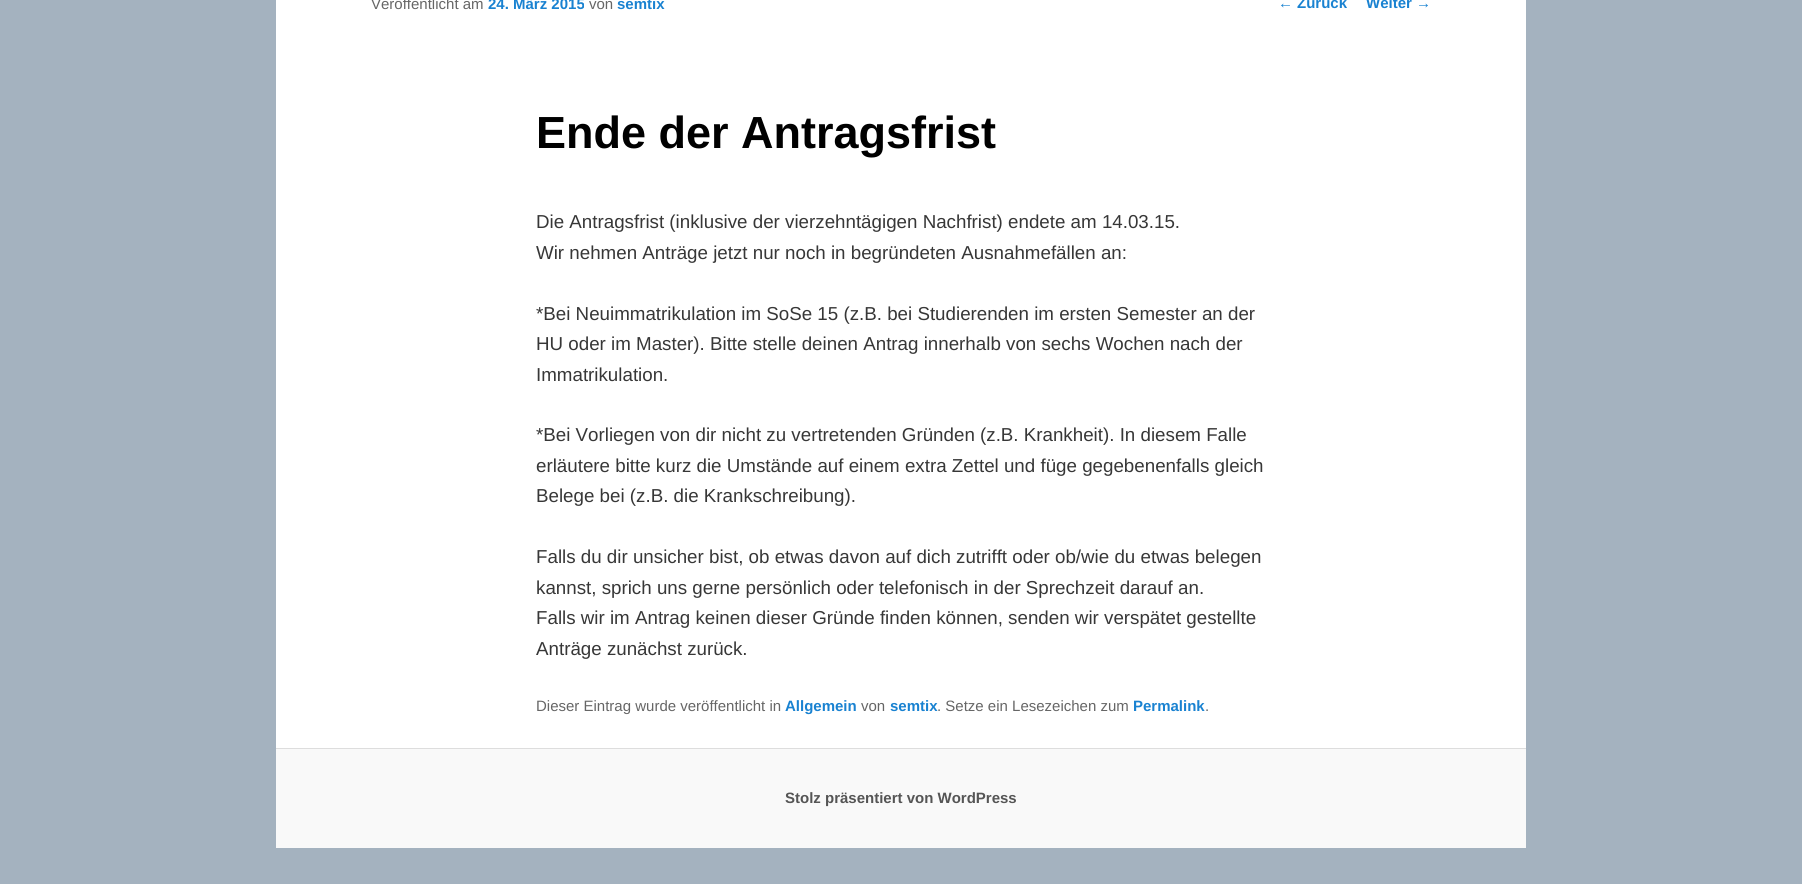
#include <cairo.h>
#include <math.h>
#include <stddef.h>

typedef struct { const char *family; double size; int italic, bold; unsigned color; } style_t;
static cairo_t *ctx;

static void ink(unsigned color) {
    cairo_set_source_rgb(ctx, (color >> 16) / 255.0, (color >> 8 & 255) / 255.0, (color & 255) / 255.0);
}

static void write(double x, double y, const char *s, const style_t *st) {
    cairo_select_font_face(ctx, st->family, st->italic ? CAIRO_FONT_SLANT_ITALIC : CAIRO_FONT_SLANT_NORMAL,
        st->bold ? CAIRO_FONT_WEIGHT_BOLD : CAIRO_FONT_WEIGHT_NORMAL);
    cairo_set_font_size(ctx, st->size);
    ink(st->color);
    cairo_move_to(ctx, x, y);
    cairo_show_text(ctx, s);
}

static void block(double x, double y, double w, double h, unsigned color) {
    ink(color);
    cairo_rectangle(ctx, x, y, w, h);
    cairo_fill(ctx);
}

static const style_t s1 = {"Liberation Sans", 15, 0, 0, 0x666666};
static const style_t s2 = {"Liberation Sans", 15, 0, 1, 0x1982d1};
static const style_t s3 = {"Liberation Sans", 45, 0, 1, 0x000000};
static const style_t s4 = {"Liberation Sans", 18.75, 0, 0, 0x373737};
static const style_t s5 = {"Liberation Sans", 15, 0, 0, 0x1982d1};
static const style_t s6 = {"Liberation Sans", 15, 0, 1, 0x555555};

int main(void) {
    cairo_surface_t *surface = cairo_image_surface_create(CAIRO_FORMAT_RGB24, 1802, 884);
    ctx = cairo_create(surface);
    cairo_font_options_t *options = cairo_font_options_create();
    cairo_font_options_set_hint_metrics(options, CAIRO_HINT_METRICS_OFF);
    cairo_font_options_set_hint_style(options, CAIRO_HINT_STYLE_NONE);
    cairo_set_font_options(ctx, options);
    cairo_set_miter_limit(ctx, 4);
    ink(0xa4b2bf);
    cairo_paint(ctx);
    block(276, 0, 1250, 748, 0xffffff);
    write(371, 9, "Veröffentlicht am", &s1);
    write(488, 9, "24. März 2015", &s2);
    write(589, 9, "von", &s1);
    write(617, 9, "semtix", &s2);
    write(536, 148, "Ende der Antragsfrist", &s3);
    write(536, 228, "Die Antragsfrist (inklusive der vierzehntägigen Nachfrist) endete am 14.03.15.", &s4);
    write(536, 259, "Wir nehmen Anträge jetzt nur noch in begründeten Ausnahmefällen an:", &s4);
    write(536, 320, "*Bei Neuimmatrikulation im SoSe 15 (z.B. bei Studierenden im ersten Semester an der", &s4);
    write(536, 350, "HU oder im Master). Bitte stelle deinen Antrag innerhalb von sechs Wochen nach der", &s4);
    write(536, 381, "Immatrikulation.", &s4);
    write(536, 441, "*Bei Vorliegen von dir nicht zu vertretenden Gründen (z.B. Krankheit). In diesem Falle", &s4);
    write(536, 472, "erläutere bitte kurz die Umstände auf einem extra Zettel und füge gegebenenfalls gleich", &s4);
    write(536, 502, "Belege bei (z.B. die Krankschreibung).", &s4);
    write(536, 563, "Falls du dir unsicher bist, ob etwas davon auf dich zutrifft oder ob/wie du etwas belegen", &s4);
    write(536, 594, "kannst, sprich uns gerne persönlich oder telefonisch in der Sprechzeit darauf an.", &s4);
    write(536, 624, "Falls wir im Antrag keinen dieser Gründe finden können, senden wir verspätet gestellte", &s4);
    write(536, 655, "Anträge zunächst zurück.", &s4);
    write(536, 711, "Dieser Eintrag wurde veröffentlicht in", &s1);
    write(785, 711, "Allgemein", &s2);
    write(861, 711, "von", &s1);
    write(890, 711, "semtix", &s2);
    write(937, 711, ". Setze ein Lesezeichen zum", &s1);
    write(1133, 711, "Permalink", &s2);
    write(1205, 711, ".", &s1);
    write(1278, 8, "←", &s5);
    write(1297, 8, "Zurück", &s2);
    write(1366, 8, "Weiter", &s2);
    write(1416, 8, "→", &s5);
    block(276, 749, 1250, 99, 0xf9f9f9);
    block(276, 748, 1250, 1, 0xdddddd);
    write(785, 803, "Stolz präsentiert von WordPress", &s6);
    cairo_surface_write_to_png(surface, "screenshot.png");
    cairo_font_options_destroy(options);
    cairo_destroy(ctx);
    cairo_surface_destroy(surface);
    return 0;
}
